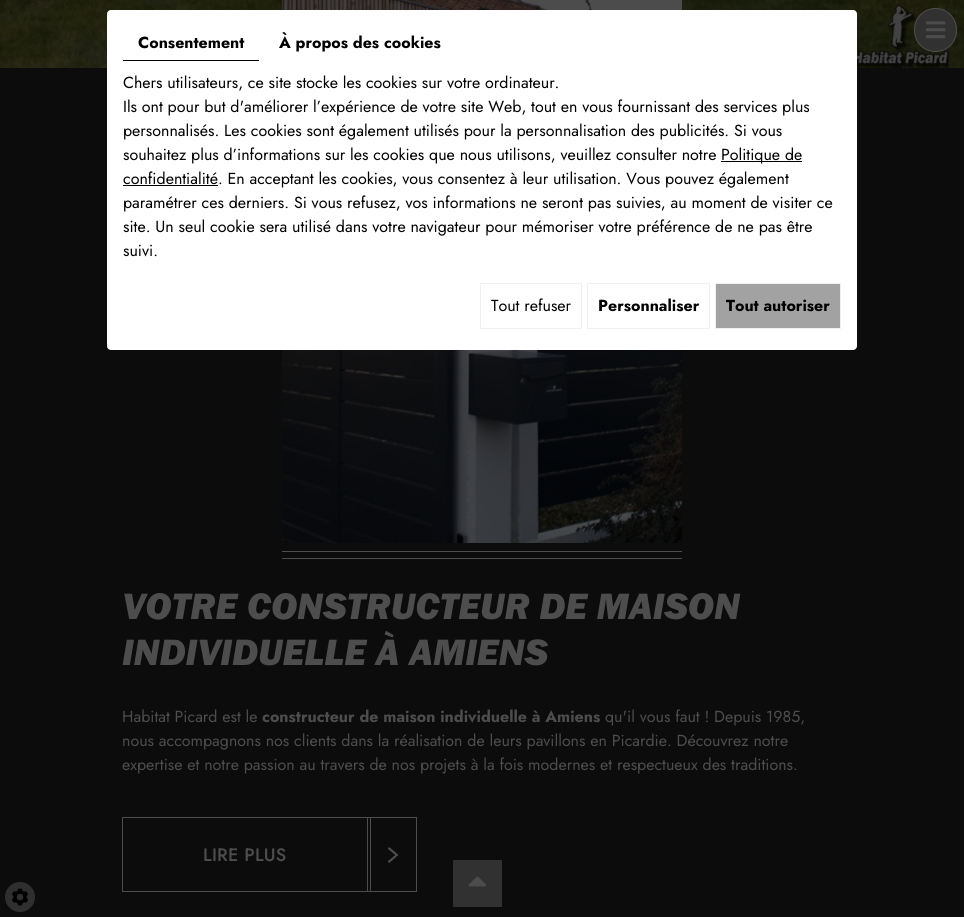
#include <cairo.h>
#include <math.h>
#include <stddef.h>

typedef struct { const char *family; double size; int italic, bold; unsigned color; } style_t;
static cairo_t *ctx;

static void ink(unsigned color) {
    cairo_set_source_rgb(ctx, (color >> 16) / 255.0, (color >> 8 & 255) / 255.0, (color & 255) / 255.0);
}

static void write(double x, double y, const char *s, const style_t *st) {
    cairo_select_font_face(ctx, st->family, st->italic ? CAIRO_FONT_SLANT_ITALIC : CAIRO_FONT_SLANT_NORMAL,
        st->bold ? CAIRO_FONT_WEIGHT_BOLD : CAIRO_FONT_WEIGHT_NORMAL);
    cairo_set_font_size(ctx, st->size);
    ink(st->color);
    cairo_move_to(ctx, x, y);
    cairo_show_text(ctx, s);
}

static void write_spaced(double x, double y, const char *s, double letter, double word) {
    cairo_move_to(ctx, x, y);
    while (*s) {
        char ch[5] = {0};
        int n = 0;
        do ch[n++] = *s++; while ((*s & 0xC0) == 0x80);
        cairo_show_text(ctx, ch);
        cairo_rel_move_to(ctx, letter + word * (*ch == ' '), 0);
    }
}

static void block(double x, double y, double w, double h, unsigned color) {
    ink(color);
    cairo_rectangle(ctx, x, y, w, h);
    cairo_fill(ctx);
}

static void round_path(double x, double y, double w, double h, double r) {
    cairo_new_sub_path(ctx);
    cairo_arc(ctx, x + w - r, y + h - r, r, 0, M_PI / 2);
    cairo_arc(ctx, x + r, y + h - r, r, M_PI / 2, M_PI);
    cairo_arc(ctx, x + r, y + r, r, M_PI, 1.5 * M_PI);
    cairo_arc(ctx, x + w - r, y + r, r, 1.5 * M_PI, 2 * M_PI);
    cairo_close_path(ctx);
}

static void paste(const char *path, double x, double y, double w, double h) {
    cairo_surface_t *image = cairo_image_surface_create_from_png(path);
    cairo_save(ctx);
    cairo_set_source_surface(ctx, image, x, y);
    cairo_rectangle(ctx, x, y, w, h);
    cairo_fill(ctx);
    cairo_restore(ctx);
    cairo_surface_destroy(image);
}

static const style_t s1 = {"Jost", 16, 0, 1, 0x000000};
static const style_t s2 = {"Jost", 16, 0, 0, 0x000000};
static const style_t s3 = {"Franklin Gothic Black", 38, 1, 0, 0x4d4d4d};
static const style_t s4 = {"Jost", 16, 0, 0, 0x4d4d4d};
static const style_t s5 = {"Jost", 16, 0, 1, 0x4d4d4d};

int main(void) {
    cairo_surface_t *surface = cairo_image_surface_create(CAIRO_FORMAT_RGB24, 964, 917);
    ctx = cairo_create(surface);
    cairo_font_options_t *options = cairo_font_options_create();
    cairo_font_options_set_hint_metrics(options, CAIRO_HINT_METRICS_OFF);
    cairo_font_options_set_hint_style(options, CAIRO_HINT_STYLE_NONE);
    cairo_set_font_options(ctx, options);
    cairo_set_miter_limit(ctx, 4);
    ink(0x0c0c0c);
    cairo_paint(ctx);
    paste("pic1.png", 0, 0, 964, 68);
    paste("pic3.png", 282, 0, 400, 543);
    ink(0xffffff);
    round_path(107, 10, 750, 340, 4);
    cairo_fill(ctx);
    block(123, 60, 136, 1, 0x000000);
    write(138, 48, "Consentement", &s1);
    write(279, 48, "À propos des cookies", &s1);
    write(123, 88, "Chers utilisateurs, ce site stocke les cookies sur votre ordinateur.", &s2);
    write(123, 112, "Ils ont pour but d'améliorer l’expérience de votre site Web, tout en vous fournissant des services plus", &s2);
    write(123, 136, "personnalisés. Les cookies sont également utilisés pour la personnalisation des publicités. Si vous", &s2);
    write(123, 160, "souhaitez plus d’informations sur les cookies que nous utilisons, veuillez consulter notre", &s2);
    block(721, 161, 81, 1, 0x000000);
    write(721, 160, "Politique de", &s2);
    block(123, 185, 95, 1, 0x000000);
    write(123, 184, "confidentialité. En acceptant les cookies, vous consentez à leur utilisation. Vous pouvez également", &s2);
    write(123, 208, "paramétrer ces derniers. Si vous refusez, vos informations ne seront pas suivies, au moment de visiter ce", &s2);
    write(123, 232, "site. Un seul cookie sera utilisé dans votre navigateur pour mémoriser votre préférence de ne pas être", &s2);
    write(123, 256, "suivi.", &s2);
    cairo_rectangle(ctx, 480.5, 283.5, 101, 45);
    ink(0xf0f0f0);
    cairo_set_line_width(ctx, 1);
    cairo_stroke(ctx);
    write(491, 311, "Tout refuser", &s2);
    cairo_rectangle(ctx, 587.5, 283.5, 122, 45);
    ink(0xf0f0f0);
    cairo_stroke(ctx);
    write(598, 311, "Personnaliser", &s1);
    ink(0xa2a2a2);
    cairo_rectangle(ctx, 715.5, 283.5, 125, 45);
    cairo_fill_preserve(ctx);
    ink(0xf0f0f0);
    cairo_stroke(ctx);
    write(726, 311, "Tout autoriser", &s1);
    ink(0x313131);
    round_path(914.5, 8.5, 42, 43, 21);
    cairo_fill_preserve(ctx);
    ink(0x4d4d4d);
    cairo_stroke(ctx);
    paste("pic2.png", 926, 21, 20, 18);
    block(282, 551, 400, 1, 0x4d4d4d);
    block(282, 558, 400, 1, 0x4d4d4d);
    write(122, 619, "VOTRE CONSTRUCTEUR DE MAISON", &s3);
    write(122, 665, "INDIVIDUELLE À AMIENS", &s3);
    write(122, 722, "Habitat Picard est le", &s4);
    write(262, 722, "constructeur de maison individuelle à Amiens", &s5);
    write(605, 722, "qu'il vous faut ! Depuis 1985,", &s4);
    write(122, 746, "nous accompagnons nos clients dans la réalisation de leurs pavillons en Picardie. Découvrez notre", &s4);
    write(122, 770, "expertise et notre passion au travers de nos projets à la fois modernes et respectueux des traditions.", &s4);
    cairo_rectangle(ctx, 122.5, 817.5, 294, 74);
    cairo_stroke(ctx);
    cairo_select_font_face(ctx, "Jost Medium", CAIRO_FONT_SLANT_NORMAL, CAIRO_FONT_WEIGHT_NORMAL);
    cairo_set_font_size(ctx, 18);
    write_spaced(203, 861, "LIRE PLUS", 0.25, 0);
    paste("pic4.png", 367, 818, 31, 73);
    block(453, 860, 49, 47, 0x313131);
    paste("pic5.png", 468, 876, 18, 11);
    ink(0x2f2f2f);
    cairo_arc(ctx, 20, 897, 15, 0, 2 * M_PI);
    cairo_fill(ctx);
    paste("pic6.png", 11, 888, 18, 18);
    cairo_surface_write_to_png(surface, "screenshot.png");
    cairo_font_options_destroy(options);
    cairo_destroy(ctx);
    cairo_surface_destroy(surface);
    return 0;
}
